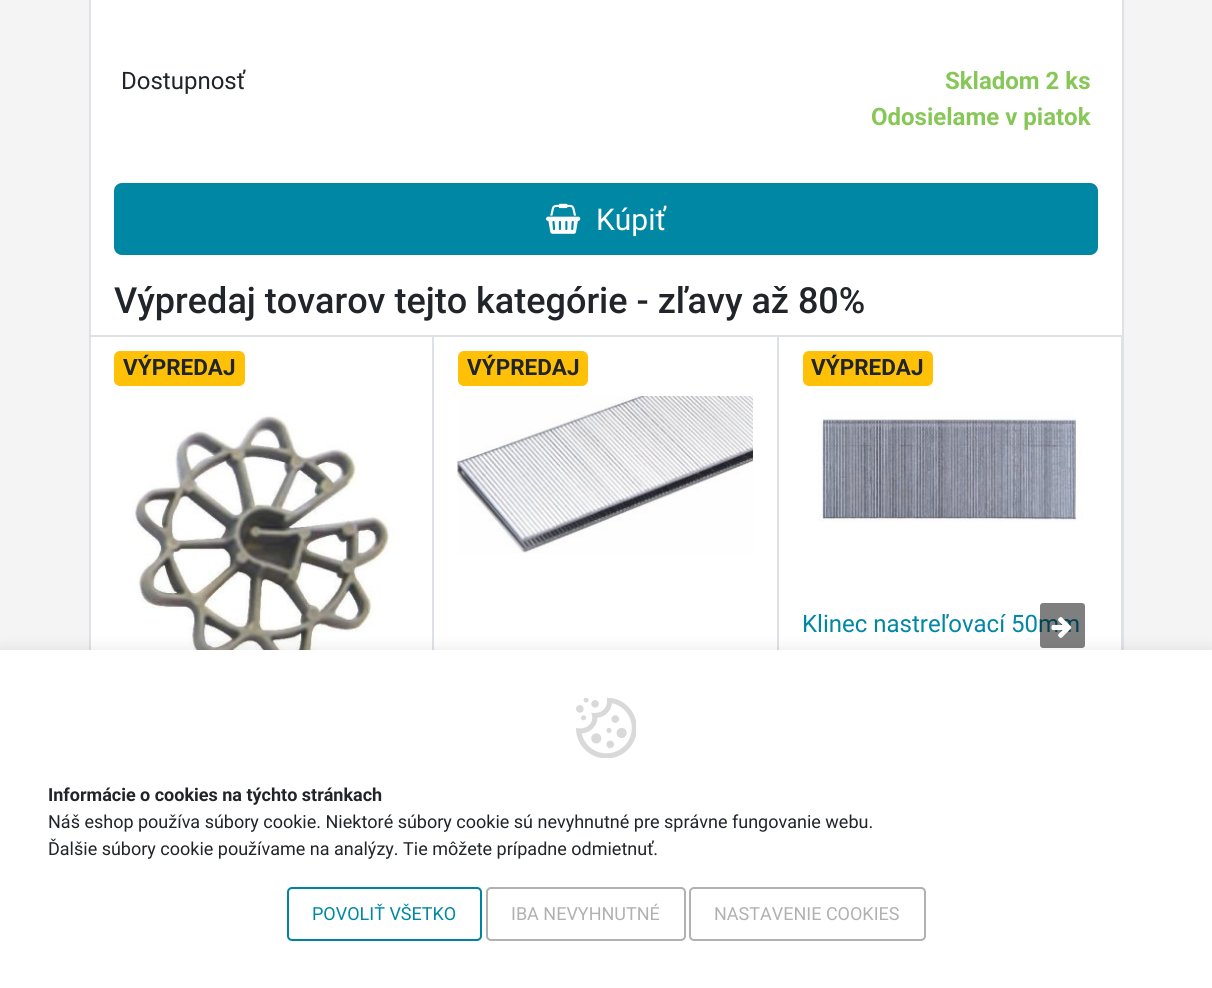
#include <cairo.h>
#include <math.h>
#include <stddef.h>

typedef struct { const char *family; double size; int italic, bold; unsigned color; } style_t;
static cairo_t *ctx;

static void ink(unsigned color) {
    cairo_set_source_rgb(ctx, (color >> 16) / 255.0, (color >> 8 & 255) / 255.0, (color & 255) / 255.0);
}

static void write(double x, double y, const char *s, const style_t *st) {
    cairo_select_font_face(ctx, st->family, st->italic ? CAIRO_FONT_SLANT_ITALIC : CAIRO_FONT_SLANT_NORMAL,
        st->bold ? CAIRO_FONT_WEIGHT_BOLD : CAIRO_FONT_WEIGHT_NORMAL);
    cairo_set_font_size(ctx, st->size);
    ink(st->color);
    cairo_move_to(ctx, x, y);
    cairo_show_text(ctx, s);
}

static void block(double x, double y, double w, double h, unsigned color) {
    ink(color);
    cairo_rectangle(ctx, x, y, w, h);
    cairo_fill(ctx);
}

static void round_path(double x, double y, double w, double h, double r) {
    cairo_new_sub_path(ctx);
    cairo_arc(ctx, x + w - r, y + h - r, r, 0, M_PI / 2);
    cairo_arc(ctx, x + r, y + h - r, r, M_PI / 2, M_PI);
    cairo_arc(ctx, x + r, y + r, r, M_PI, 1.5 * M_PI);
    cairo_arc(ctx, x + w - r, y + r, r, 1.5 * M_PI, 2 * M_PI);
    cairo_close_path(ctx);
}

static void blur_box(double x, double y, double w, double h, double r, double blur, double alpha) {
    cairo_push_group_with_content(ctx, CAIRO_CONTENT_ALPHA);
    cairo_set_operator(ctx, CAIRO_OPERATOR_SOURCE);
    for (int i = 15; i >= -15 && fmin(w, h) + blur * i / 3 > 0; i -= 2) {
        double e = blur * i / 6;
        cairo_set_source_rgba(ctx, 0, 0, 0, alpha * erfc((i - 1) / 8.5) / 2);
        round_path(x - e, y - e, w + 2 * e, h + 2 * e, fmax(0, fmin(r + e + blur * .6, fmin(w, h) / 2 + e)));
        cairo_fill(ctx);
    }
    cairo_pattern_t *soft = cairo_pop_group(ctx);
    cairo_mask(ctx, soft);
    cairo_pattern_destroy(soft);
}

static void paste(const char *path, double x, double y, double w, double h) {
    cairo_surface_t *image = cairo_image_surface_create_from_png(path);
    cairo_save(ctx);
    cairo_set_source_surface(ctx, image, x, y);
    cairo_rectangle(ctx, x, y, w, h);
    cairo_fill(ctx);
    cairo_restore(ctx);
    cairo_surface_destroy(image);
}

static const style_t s1 = {"Roboto", 24, 0, 0, 0x212529};
static const style_t s2 = {"Roboto", 24, 0, 1, 0x87c757};
static const style_t s3 = {"Roboto", 30, 0, 0, 0xffffff};
static const style_t s4 = {"Roboto Medium", 36, 0, 0, 0x212529};
static const style_t s5 = {"Roboto", 22.5, 0, 1, 0x212529};
static const style_t s6 = {"Roboto", 24, 0, 0, 0x0087a4};
static const style_t s7 = {"Roboto", 18, 0, 1, 0x212529};
static const style_t s8 = {"Roboto", 18, 0, 0, 0x212529};
static const style_t s9 = {"Roboto", 18, 0, 0, 0x0087a4};
static const style_t s10 = {"Roboto", 18, 0, 0, 0xb1b1b1};

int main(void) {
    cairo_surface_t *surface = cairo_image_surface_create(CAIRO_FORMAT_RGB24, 1212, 988);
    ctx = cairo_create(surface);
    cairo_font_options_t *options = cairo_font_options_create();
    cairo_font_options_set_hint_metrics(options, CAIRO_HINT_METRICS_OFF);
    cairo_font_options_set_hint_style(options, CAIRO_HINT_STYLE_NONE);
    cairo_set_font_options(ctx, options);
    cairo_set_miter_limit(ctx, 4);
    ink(0xf4f4f4);
    cairo_paint(ctx);
    block(91, 0, 1031, 650, 0xffffff);
    cairo_rectangle(ctx, 90, -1, 1033, 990);
    ink(0xdee2e6);
    cairo_stroke(ctx);
    write(121, 89, "Dostupnosť", &s1);
    write(945, 89, "Skladom 2 ks", &s2);
    write(871, 125, "Odosielame v piatok", &s2);
    ink(0x0087a4);
    round_path(115, 184, 982, 70, 7);
    cairo_fill_preserve(ctx);
    cairo_stroke(ctx);
    paste("pic1.png", 546, 203, 35, 31);
    write(596, 230, "Kúpiť", &s3);
    write(114, 313, "Výpredaj tovarov tejto kategórie - zľavy až 80%", &s4);
    cairo_rectangle(ctx, 90, 336, 1033, 581);
    ink(0xdee2e6);
    cairo_stroke(ctx);
    block(432, 336, 2, 314, 0xdee2e6);
    ink(0xffc107);
    round_path(114, 351, 131, 35, 6);
    cairo_fill(ctx);
    write(123, 375, "VÝPREDAJ", &s5);
    paste("pic2.png", 130, 413, 266, 237);
    block(777, 336, 2, 314, 0xdee2e6);
    ink(0xffc107);
    round_path(458, 351, 130, 35, 6);
    cairo_fill(ctx);
    write(467, 375, "VÝPREDAJ", &s5);
    paste("pic3.png", 457, 396, 296, 158);
    block(1121, 336, 1, 314, 0xdee2e6);
    ink(0xffc107);
    round_path(803, 351, 130, 35, 6);
    cairo_fill(ctx);
    write(811, 375, "VÝPREDAJ", &s5);
    paste("pic4.png", 818, 412, 266, 110);
    write(802, 632, "Klinec nastreľovací 50mm", &s6);
    ink(0x000000);
    blur_box(0, 650, 1212, 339, 0, 7.5, 0.1);
    cairo_set_source_rgba(ctx, 0, 0, 0, 0.5);
    round_path(1040, 603, 45, 45, 3);
    cairo_fill(ctx);
    paste("pic5.png", 1051, 617, 21, 21);
    block(0, 650, 1212, 338, 0xffffff);
    paste("pic6.png", 576, 698, 60, 60);
    write(48, 801, "Informácie o cookies na týchto stránkach", &s7);
    write(48, 828, "Náš eshop používa súbory cookie. Niektoré súbory cookie sú nevyhnutné pre správne fungovanie webu.", &s8);
    write(48, 855, "Ďalšie súbory cookie používame na analýzy. Tie môžete prípadne odmietnuť.", &s8);
    round_path(288, 888, 193, 52, 4);
    ink(0x00839f);
    cairo_stroke(ctx);
    write(312, 920, "POVOLIŤ VŠETKO", &s9);
    round_path(487, 888, 198, 52, 4);
    ink(0xb1b1b1);
    cairo_stroke(ctx);
    write(511, 920, "IBA NEVYHNUTNÉ", &s10);
    round_path(690, 888, 235, 52, 4);
    cairo_stroke(ctx);
    write(714, 920, "NASTAVENIE COOKIES", &s10);
    cairo_surface_write_to_png(surface, "screenshot.png");
    cairo_font_options_destroy(options);
    cairo_destroy(ctx);
    cairo_surface_destroy(surface);
    return 0;
}
